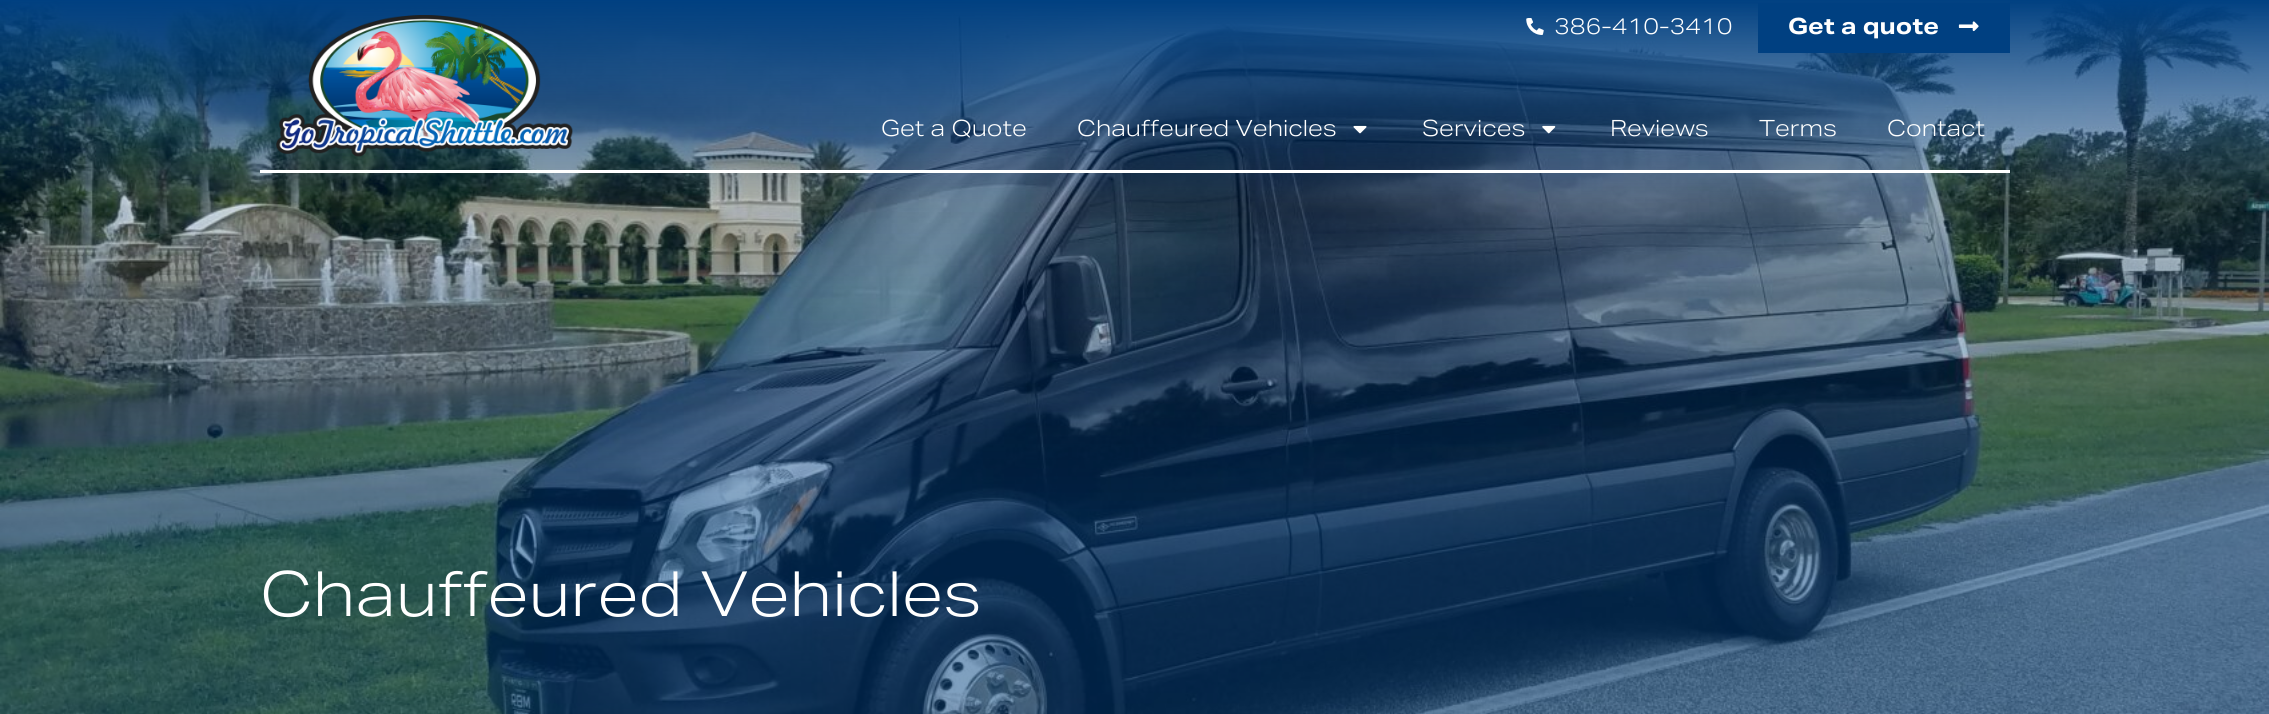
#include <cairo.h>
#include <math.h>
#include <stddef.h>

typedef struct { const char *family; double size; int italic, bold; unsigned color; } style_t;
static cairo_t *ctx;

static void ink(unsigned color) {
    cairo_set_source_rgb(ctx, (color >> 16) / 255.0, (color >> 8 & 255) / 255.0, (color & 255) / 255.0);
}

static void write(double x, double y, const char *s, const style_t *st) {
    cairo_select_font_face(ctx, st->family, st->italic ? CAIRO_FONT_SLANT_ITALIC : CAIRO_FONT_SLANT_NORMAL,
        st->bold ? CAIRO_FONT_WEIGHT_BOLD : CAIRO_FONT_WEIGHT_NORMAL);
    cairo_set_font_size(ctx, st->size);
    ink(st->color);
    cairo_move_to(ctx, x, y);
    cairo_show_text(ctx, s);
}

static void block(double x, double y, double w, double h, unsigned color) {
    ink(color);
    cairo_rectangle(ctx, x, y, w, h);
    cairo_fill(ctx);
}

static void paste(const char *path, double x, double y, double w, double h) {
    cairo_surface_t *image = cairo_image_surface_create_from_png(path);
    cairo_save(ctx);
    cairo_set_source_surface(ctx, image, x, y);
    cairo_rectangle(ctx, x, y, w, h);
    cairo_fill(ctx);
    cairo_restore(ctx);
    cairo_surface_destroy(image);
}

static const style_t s1 = {"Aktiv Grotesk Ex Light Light", 22.5, 0, 0, 0xffffff};
static const style_t s2 = {"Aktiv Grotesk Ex", 22.5, 0, 1, 0xffffff};
static const style_t s3 = {"Aktiv Grotesk Ex Light Light", 62.5, 0, 0, 0xffffff};

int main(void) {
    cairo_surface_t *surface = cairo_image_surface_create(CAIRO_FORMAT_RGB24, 2269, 714);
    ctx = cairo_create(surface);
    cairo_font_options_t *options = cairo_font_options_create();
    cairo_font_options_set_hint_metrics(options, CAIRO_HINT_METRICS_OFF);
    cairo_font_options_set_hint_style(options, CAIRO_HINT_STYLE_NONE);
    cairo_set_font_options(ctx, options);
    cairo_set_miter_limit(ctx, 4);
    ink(0xffffff);
    cairo_paint(ctx);
    paste("pic6.png", 0, 0, 2269, 714);
    paste("pic1.png", 276, 15, 297, 142);
    paste("pic2.png", 1526, 18, 18, 17);
    write(1554, 34, "386-410-3410", &s1);
    block(1758, 3, 252, 50, 0x004081);
    write(1788, 34, "Get a quote", &s2);
    paste("pic3.png", 1958, 21, 21, 11);
    write(881, 136, "Get a Quote", &s1);
    write(1077, 136, "Chauffeured Vehicles", &s1);
    paste("pic4.png", 1353, 125, 14, 9);
    write(1422, 136, "Services", &s1);
    paste("pic5.png", 1542, 125, 14, 9);
    write(1610, 136, "Reviews", &s1);
    write(1759, 136, "Terms", &s1);
    write(1887, 136, "Contact", &s1);
    block(260, 170, 1750, 3, 0xffffff);
    write(260, 616, "Chauffeured Vehicles", &s3);
    cairo_surface_write_to_png(surface, "screenshot.png");
    cairo_font_options_destroy(options);
    cairo_destroy(ctx);
    cairo_surface_destroy(surface);
    return 0;
}
